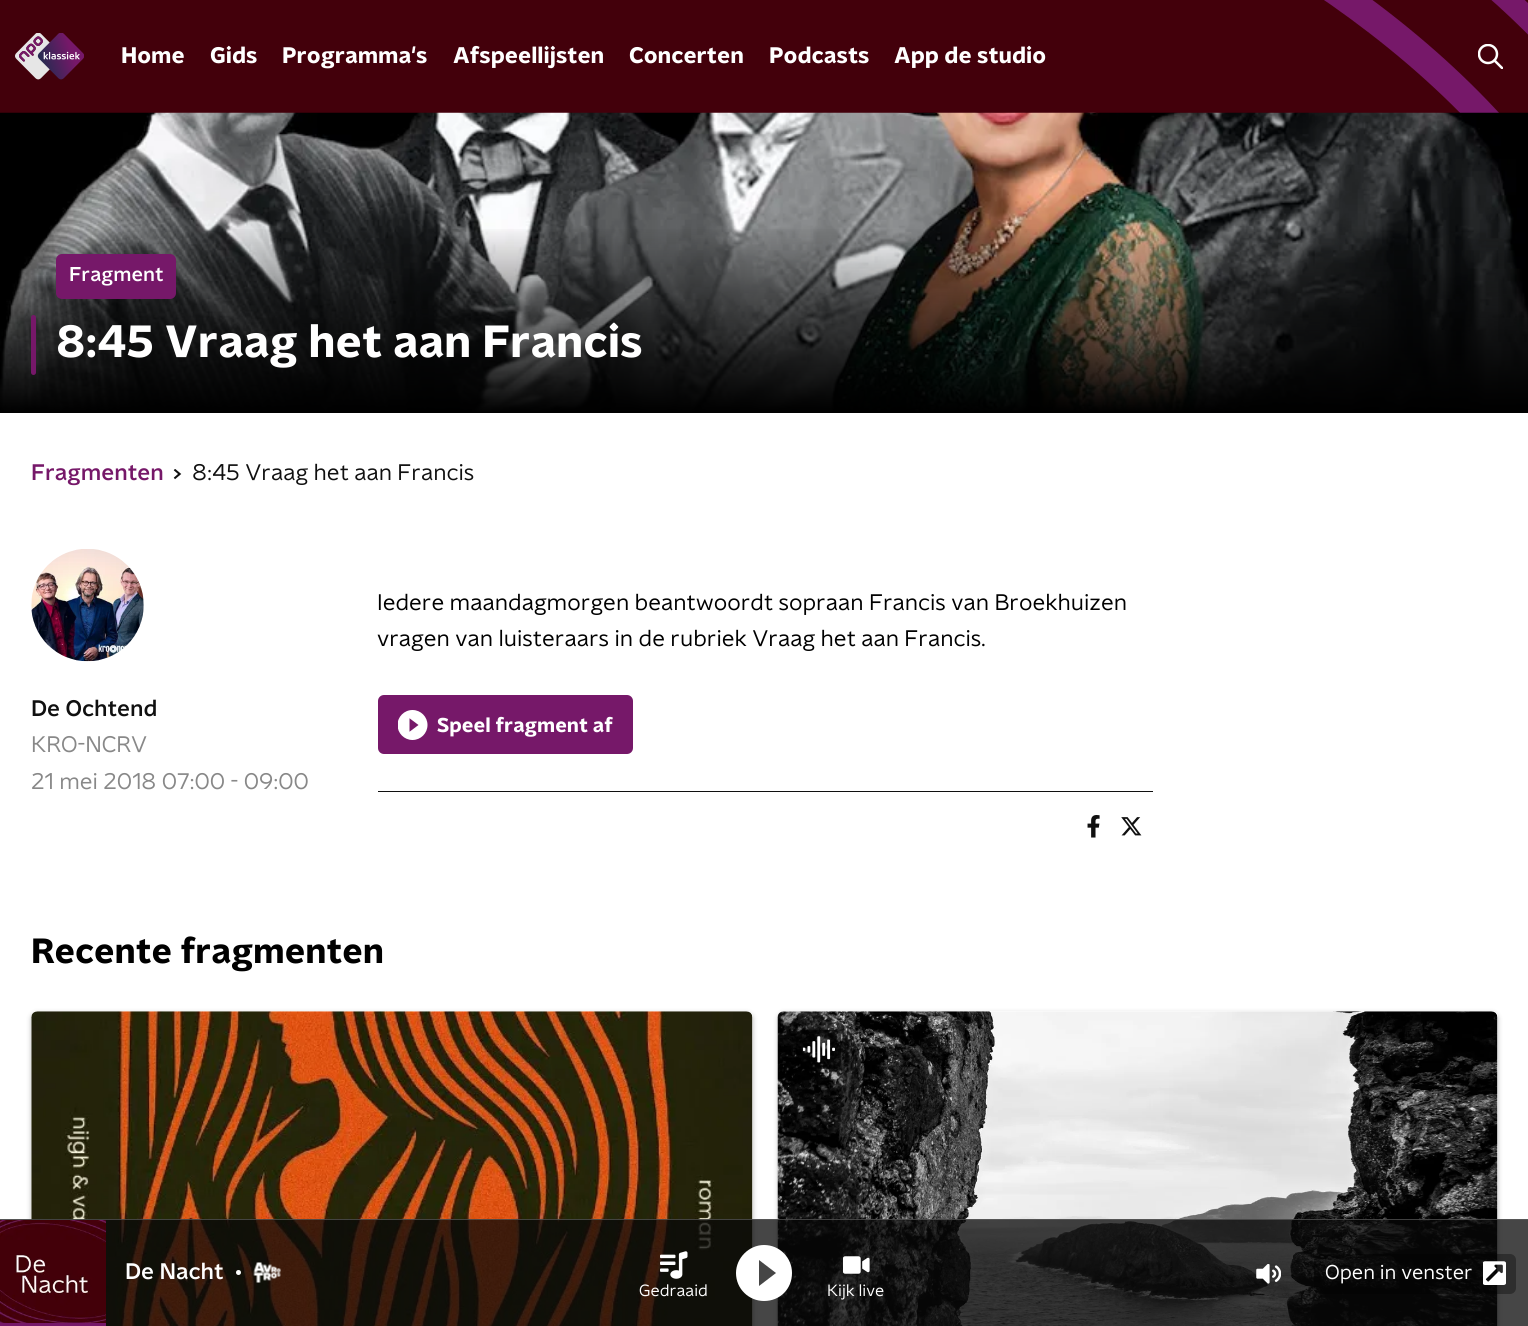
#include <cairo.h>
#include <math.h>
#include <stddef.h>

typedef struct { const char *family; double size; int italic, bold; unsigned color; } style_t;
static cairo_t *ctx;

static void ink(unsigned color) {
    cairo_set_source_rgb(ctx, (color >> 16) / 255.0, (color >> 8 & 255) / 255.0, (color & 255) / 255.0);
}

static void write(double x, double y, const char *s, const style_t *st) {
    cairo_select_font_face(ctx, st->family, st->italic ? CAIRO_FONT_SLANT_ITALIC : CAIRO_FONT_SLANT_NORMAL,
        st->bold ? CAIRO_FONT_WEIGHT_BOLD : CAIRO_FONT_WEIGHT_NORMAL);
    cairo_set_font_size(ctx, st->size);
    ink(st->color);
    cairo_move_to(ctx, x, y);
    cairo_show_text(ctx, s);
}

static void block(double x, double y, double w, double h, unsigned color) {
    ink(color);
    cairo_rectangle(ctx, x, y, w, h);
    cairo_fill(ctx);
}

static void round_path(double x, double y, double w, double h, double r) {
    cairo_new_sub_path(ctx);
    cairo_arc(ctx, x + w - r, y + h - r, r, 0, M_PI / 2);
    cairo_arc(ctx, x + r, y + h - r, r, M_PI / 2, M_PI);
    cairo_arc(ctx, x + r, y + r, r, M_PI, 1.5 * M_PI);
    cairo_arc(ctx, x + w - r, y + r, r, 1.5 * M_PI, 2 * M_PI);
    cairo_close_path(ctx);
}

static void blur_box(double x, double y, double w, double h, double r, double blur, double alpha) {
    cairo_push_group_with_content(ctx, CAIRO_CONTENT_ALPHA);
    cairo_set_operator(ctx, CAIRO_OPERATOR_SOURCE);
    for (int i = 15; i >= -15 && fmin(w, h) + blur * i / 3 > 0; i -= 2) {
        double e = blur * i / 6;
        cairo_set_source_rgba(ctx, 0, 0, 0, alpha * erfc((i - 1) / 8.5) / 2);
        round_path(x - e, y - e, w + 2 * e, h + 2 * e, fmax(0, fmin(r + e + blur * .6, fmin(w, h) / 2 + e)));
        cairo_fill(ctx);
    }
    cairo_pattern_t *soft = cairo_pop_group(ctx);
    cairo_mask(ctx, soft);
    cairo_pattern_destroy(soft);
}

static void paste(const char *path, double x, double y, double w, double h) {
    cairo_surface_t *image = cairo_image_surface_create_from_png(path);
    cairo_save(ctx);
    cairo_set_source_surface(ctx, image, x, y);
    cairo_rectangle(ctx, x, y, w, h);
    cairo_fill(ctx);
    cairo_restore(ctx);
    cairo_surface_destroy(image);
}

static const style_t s1 = {"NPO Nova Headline", 22.5, 0, 1, 0xffffff};
static const style_t s2 = {"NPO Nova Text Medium", 20, 0, 0, 0xffffff};
static const style_t s3 = {"NPO Nova Headline", 45, 0, 1, 0xffffff};
static const style_t s4 = {"NPO Nova Text Medium", 22.5, 0, 0, 0x761869};
static const style_t s5 = {"NPO Nova Text", 22.5, 0, 0, 0x101010};
static const style_t s6 = {"NPO Nova Text Medium", 22.5, 0, 0, 0x101010};
static const style_t s7 = {"NPO Nova Text", 22.5, 0, 0, 0x888888};
static const style_t s8 = {"NPO Nova Text", 22.5, 0, 0, 0x000000};
static const style_t s9 = {"NPO Nova Headline", 20, 0, 1, 0xffffff};
static const style_t s10 = {"NPO Nova Headline", 35, 0, 1, 0x000000};
static const style_t s11 = {"NPO Nova Text Medium", 22.5, 0, 0, 0xffffff};
static const style_t s12 = {"NPO Nova Text", 20, 0, 0, 0xffffff};
static const style_t s13 = {"NPO Nova Text", 16.25, 0, 0, 0xffffff};

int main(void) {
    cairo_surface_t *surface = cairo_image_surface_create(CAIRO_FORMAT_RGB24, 1528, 1326);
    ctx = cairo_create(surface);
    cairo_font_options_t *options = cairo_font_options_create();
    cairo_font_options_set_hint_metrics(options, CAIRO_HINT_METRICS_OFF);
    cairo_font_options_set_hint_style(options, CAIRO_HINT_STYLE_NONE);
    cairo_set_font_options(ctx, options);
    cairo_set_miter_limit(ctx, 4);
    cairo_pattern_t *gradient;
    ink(0xffffff);
    cairo_paint(ctx);
    block(0, 0, 1528, 113, 0x43000b);
    paste("pic1.png", 15, 33, 69, 47);
    write(121, 63, "Home", &s1);
    write(210, 63, "Gids", &s1);
    write(282, 63, "Programma's", &s1);
    write(453, 63, "Afspeellijsten", &s1);
    write(629, 63, "Concerten", &s1);
    write(769, 63, "Podcasts", &s1);
    write(894, 63, "App de studio", &s1);
    paste("pic2.png", 1324, 0, 204, 113);
    cairo_save(ctx);
    cairo_rectangle(ctx, 1478, 44, 25, 25);
    cairo_clip(ctx);
    cairo_arc(ctx, 1488, 54, 9, 0, 2 * M_PI);
    cairo_set_line_width(ctx, 2.5);
    cairo_stroke(ctx);
    cairo_new_path(ctx);
    cairo_move_to(ctx, 1494.5, 60.5);
    cairo_line_to(ctx, 1502, 68);
    cairo_set_line_cap(ctx, CAIRO_LINE_CAP_SQUARE);
    cairo_stroke(ctx);
    cairo_restore(ctx);
    paste("pic3.png", 0, 112, 1528, 300);
    gradient = cairo_pattern_create_linear(764, 225, 764, 413);
    cairo_pattern_add_color_stop_rgba(gradient, 0, 0, 0, 0, 0);
    cairo_pattern_add_color_stop_rgba(gradient, 1, 0, 0, 0, 1);
    cairo_set_source(ctx, gradient);
    cairo_pattern_destroy(gradient);
    cairo_rectangle(ctx, 0, 229, 1528, 184);
    cairo_fill(ctx);
    ink(0x761869);
    round_path(56, 254, 120, 45, 6);
    cairo_fill(ctx);
    write(69, 281, "Fragment", &s2);
    ink(0x761869);
    round_path(31, 315, 5, 60, 2.5);
    cairo_fill(ctx);
    write(56, 357, "8:45 Vraag het aan Francis", &s3);
    write(31, 480, "Fragmenten", &s4);
    paste("pic4.png", 173, 469, 9, 11);
    write(192, 480, "8:45 Vraag het aan Francis", &s5);
    paste("pic5.png", 31, 549, 113, 113);
    write(31, 716, "De Ochtend", &s6);
    write(31, 752, "KRO-NCRV", &s7);
    write(31, 789, "21 mei 2018 07:00 - 09:00", &s7);
    write(377, 610, "Iedere maandagmorgen beantwoordt sopraan Francis van Broekhuizen", &s8);
    write(377, 646, "vragen van luisteraars in de rubriek Vraag het aan Francis.", &s8);
    ink(0x761869);
    round_path(378, 695, 255, 59, 6);
    cairo_fill(ctx);
    paste("pic6.png", 398, 710, 30, 30);
    write(437, 732, "Speel fragment af", &s9);
    block(378, 791, 775, 1, 0x101010);
    paste("pic7.png", 1087, 815, 13, 23);
    paste("pic8.png", 1121, 817, 21, 19);
    write(31, 963, "Recente fragmenten", &s10);
    ink(0x000000);
    blur_box(31, 1013, 722, 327, 6, 2.5, 0.25);
    ink(0xffffff);
    round_path(31, 1011, 722, 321, 6);
    cairo_fill(ctx);
    paste("pic9.png", 31, 1011, 722, 315);
    ink(0x000000);
    blur_box(778, 1013, 720, 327, 6, 2.5, 0.25);
    ink(0xffffff);
    round_path(778, 1011, 720, 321, 6);
    cairo_fill(ctx);
    cairo_save(ctx);
    round_path(778, 1011, 720, 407, 6);
    cairo_clip(ctx);
    cairo_new_path(ctx);
    cairo_move_to(ctx, 784, 1011);
    cairo_line_to(ctx, 1492, 1011);
    cairo_curve_to(ctx, 1495.5, 1011, 1498, 1013.5, 1498, 1017);
    cairo_line_to(ctx, 1498, 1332);
    cairo_line_to(ctx, 778, 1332);
    cairo_line_to(ctx, 778, 1017);
    cairo_curve_to(ctx, 778, 1013.5, 780.5, 1011, 784, 1011);
    cairo_close_path(ctx);
    cairo_fill(ctx);
    cairo_restore(ctx);
    paste("pic10.png", 777, 1011, 721, 315);
    cairo_set_source_rgba(ctx, 0, 0, 0, 0.5);
    round_path(796, 1030, 45, 39, 6);
    cairo_fill(ctx);
    paste("pic11.png", 803, 1036, 32, 27);
    cairo_set_source_rgba(ctx, 0.035, 0.035, 0.035, 0.75);
    cairo_rectangle(ctx, 0, 1219, 1528, 107);
    cairo_fill(ctx);
    cairo_set_source_rgba(ctx, 0.373, 0.373, 0.373, 0.65);
    cairo_rectangle(ctx, 0, 1219, 1528, 1);
    cairo_fill(ctx);
    paste("pic12.png", 0, 1220, 106, 103);
    block(0, 1323, 106, 3, 0x761869);
    write(125, 1279, "De Nacht", &s11);
    cairo_new_path(ctx);
    cairo_arc(ctx, 238.5, 1272.5, 2.5, 0, 2 * M_PI);
    cairo_fill(ctx);
    paste("pic13.png", 253, 1262, 28, 21);
    paste("pic14.png", 1256, 1264, 25, 20);
    cairo_set_source_rgba(ctx, 0, 0, 0, 0.35);
    round_path(1314, 1254, 202, 40, 6);
    cairo_fill(ctx);
    write(1325, 1279, "Open in venster", &s12);
    paste("pic15.png", 1483, 1261, 23, 24);
    paste("pic16.png", 660, 1251, 28, 28);
    write(639, 1296, "Gedraaid", &s13);
    cairo_new_path(ctx);
    cairo_move_to(ctx, 764, 1245);
    cairo_curve_to(ctx, 749, 1245, 736, 1258, 736, 1273);
    cairo_curve_to(ctx, 736, 1289, 749, 1301, 764, 1301);
    cairo_curve_to(ctx, 780, 1301, 792, 1289, 792, 1273);
    cairo_curve_to(ctx, 792, 1258, 780, 1245, 764, 1245);
    cairo_close_path(ctx);
    cairo_move_to(ctx, 759, 1286);
    cairo_line_to(ctx, 759, 1260);
    cairo_line_to(ctx, 776, 1273);
    cairo_close_path(ctx);
    cairo_fill(ctx);
    paste("pic17.png", 843, 1256, 27, 18);
    write(827, 1296, "Kijk live", &s13);
    cairo_surface_write_to_png(surface, "screenshot.png");
    cairo_font_options_destroy(options);
    cairo_destroy(ctx);
    cairo_surface_destroy(surface);
    return 0;
}
